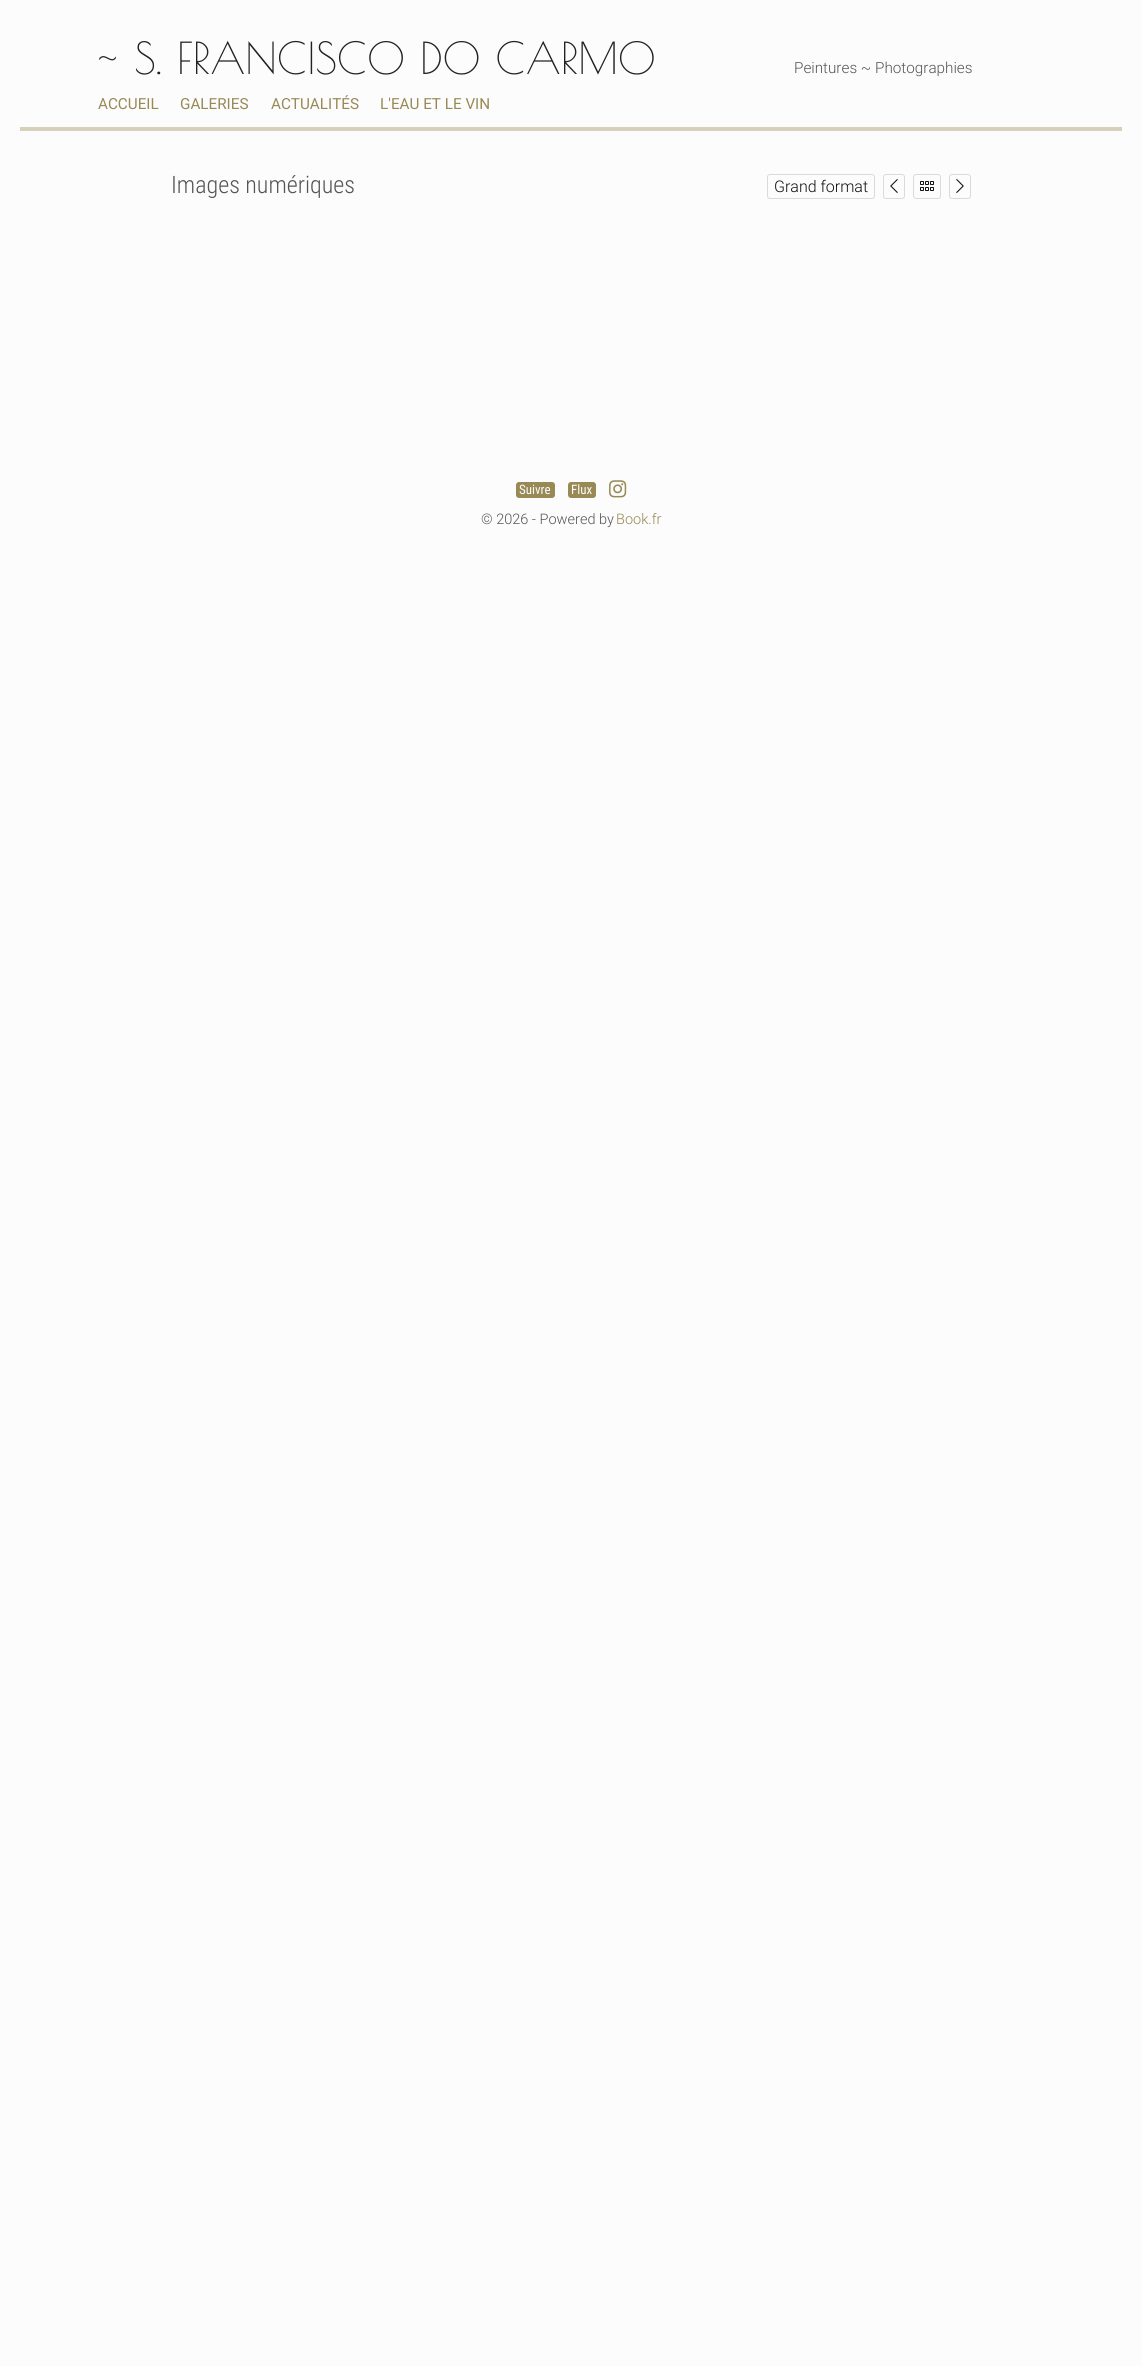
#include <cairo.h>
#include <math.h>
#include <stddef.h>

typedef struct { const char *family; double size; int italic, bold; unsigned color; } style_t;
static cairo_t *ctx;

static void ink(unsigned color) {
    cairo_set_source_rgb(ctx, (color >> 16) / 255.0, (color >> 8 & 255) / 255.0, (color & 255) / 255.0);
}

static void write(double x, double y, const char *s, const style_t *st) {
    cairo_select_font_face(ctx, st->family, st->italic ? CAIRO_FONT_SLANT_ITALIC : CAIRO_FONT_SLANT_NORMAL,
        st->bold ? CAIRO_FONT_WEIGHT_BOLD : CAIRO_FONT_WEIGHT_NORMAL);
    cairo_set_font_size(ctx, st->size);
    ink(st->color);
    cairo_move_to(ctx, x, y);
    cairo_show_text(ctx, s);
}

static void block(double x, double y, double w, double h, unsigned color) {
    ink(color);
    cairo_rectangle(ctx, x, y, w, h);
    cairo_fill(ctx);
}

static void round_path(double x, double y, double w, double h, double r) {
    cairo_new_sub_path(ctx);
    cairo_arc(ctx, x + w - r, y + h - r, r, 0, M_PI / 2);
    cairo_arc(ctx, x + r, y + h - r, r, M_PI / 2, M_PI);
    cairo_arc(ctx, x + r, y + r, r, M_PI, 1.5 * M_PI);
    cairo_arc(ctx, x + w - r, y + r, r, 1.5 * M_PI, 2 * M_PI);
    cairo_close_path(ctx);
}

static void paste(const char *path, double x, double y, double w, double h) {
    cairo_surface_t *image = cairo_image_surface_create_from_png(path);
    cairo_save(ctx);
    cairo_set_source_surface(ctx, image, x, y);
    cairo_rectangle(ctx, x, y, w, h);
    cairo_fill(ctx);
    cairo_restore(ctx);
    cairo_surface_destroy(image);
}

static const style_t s1 = {"Poiret One", 43.25, 0, 0, 0x222222};
static const style_t s2 = {"Roboto Light", 15.25, 0, 0, 0x555555};
static const style_t s3 = {"Roboto", 15.25, 0, 0, 0x988955};
static const style_t s4 = {"Roboto Condensed Light", 24, 0, 0, 0x555555};
static const style_t s5 = {"Roboto Light", 16, 0, 0, 0x111111};
static const style_t s6 = {"Roboto Condensed", 13, 0, 0, 0xfcfcfc};
static const style_t s7 = {"Roboto Light", 14.5, 0, 0, 0x555555};
static const style_t s8 = {"Roboto Light", 14.5, 0, 0, 0x988955};

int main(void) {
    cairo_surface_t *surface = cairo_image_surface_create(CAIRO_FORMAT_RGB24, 1142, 2366);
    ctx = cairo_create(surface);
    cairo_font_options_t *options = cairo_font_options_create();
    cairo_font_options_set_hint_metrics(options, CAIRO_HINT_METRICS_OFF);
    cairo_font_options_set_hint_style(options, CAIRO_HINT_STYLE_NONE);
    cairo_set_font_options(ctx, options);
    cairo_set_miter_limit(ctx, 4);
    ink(0xfcfcfc);
    cairo_paint(ctx);
    write(96, 74, "~ S. FRANCISCO DO CARMO", &s1);
    write(794, 73, "Peintures ~ Photographies", &s2);
    write(98, 109, "ACCUEIL", &s3);
    write(180, 109, "GALERIES", &s3);
    write(271, 109, "ACTUALITÉS", &s3);
    write(380, 109, "L'EAU ET LE VIN", &s3);
    block(20, 127, 1102, 4, 0xd8d1b9);
    write(171, 193, "Images numériques", &s4);
    round_path(767.5, 174.5, 107, 24, 2.5);
    ink(0xdadada);
    cairo_set_line_width(ctx, 1);
    cairo_stroke(ctx);
    write(774, 192, "Grand format", &s5);
    round_path(883.5, 174.5, 21, 24, 2.5);
    ink(0xdadada);
    cairo_stroke(ctx);
    paste("pic1.png", 890, 179, 8, 14);
    round_path(913.5, 174.5, 27, 24, 2.5);
    cairo_stroke(ctx);
    paste("pic2.png", 920, 181, 14, 10);
    round_path(949.5, 174.5, 21, 24, 2.5);
    cairo_stroke(ctx);
    paste("pic3.png", 956, 179, 8, 14);
    ink(0x988955);
    round_path(516, 482, 39, 16, 3);
    cairo_fill(ctx);
    write(519, 494, "Suivre", &s6);
    ink(0x988955);
    round_path(568, 482, 28, 16, 3);
    cairo_fill(ctx);
    write(571, 494, "Flux", &s6);
    paste("pic4.png", 609, 480, 18, 18);
    write(481, 524, "© 2026 - Powered by", &s7);
    write(616, 524, "Book.fr", &s8);
    cairo_surface_write_to_png(surface, "screenshot.png");
    cairo_font_options_destroy(options);
    cairo_destroy(ctx);
    cairo_surface_destroy(surface);
    return 0;
}
